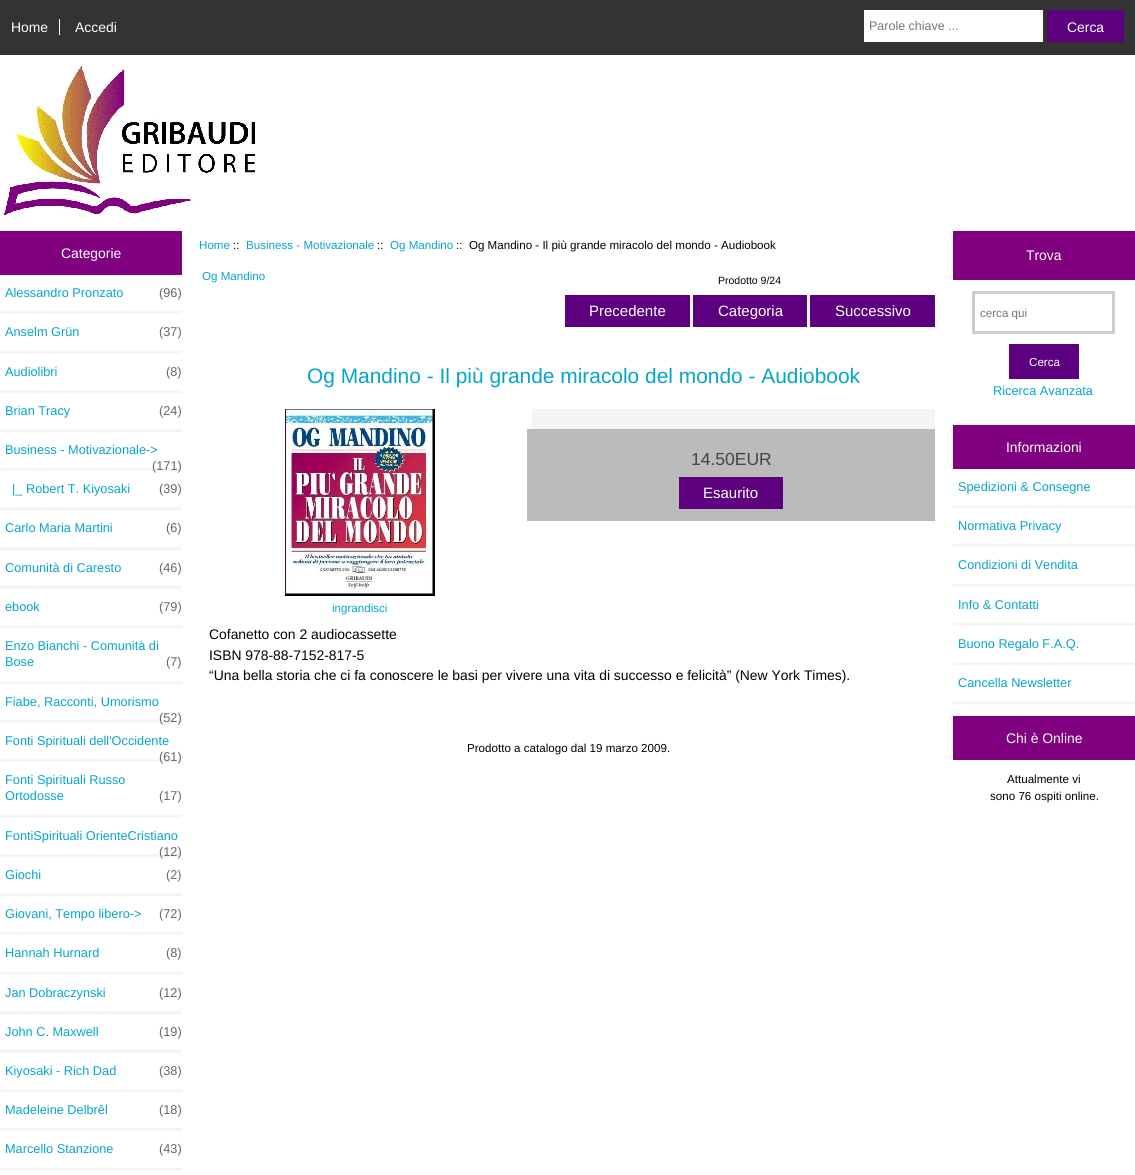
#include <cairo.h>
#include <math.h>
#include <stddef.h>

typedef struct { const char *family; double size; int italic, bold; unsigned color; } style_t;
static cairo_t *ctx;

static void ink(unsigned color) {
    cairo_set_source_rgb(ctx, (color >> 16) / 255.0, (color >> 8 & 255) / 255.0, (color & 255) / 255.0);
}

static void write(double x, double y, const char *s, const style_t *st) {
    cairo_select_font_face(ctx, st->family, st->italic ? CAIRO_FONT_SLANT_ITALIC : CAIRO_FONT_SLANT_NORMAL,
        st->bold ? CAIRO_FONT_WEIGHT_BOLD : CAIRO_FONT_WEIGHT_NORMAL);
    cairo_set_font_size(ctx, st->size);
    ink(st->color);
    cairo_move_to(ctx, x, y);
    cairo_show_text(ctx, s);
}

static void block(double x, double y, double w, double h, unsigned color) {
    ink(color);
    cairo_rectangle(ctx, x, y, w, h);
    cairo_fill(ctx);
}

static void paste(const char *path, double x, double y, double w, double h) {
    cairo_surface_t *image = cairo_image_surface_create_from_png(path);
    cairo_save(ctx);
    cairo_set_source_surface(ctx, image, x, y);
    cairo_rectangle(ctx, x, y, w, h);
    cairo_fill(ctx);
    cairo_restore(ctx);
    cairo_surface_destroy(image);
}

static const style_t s1 = {"Liberation Sans", 13.9, 0, 0, 0xffffff};
static const style_t s2 = {"Liberation Sans", 12.5, 0, 0, 0x757575};
static const style_t s3 = {"Liberation Sans", 12.75, 0, 0, 0x05a5cb};
static const style_t s4 = {"Liberation Sans", 12.75, 0, 0, 0x666666};
static const style_t s5 = {"Liberation Sans", 11.6, 0, 0, 0x05a5cb};
static const style_t s6 = {"Liberation Sans", 11.6, 0, 0, 0x000000};
static const style_t s7 = {"Liberation Sans", 10.5, 0, 0, 0x000000};
static const style_t s8 = {"Liberation Sans", 15, 0, 0, 0xffffff};
static const style_t s9 = {"Liberation Sans", 20.9, 0, 0, 0x05a5cb};
static const style_t s10 = {"Liberation Sans", 17.5, 0, 0, 0x444444};
static const style_t s11 = {"Liberation Sans", 13.9, 0, 0, 0x000000};
static const style_t s12 = {"Liberation Sans", 11.6, 0, 0, 0x757575};
static const style_t s13 = {"Liberation Sans", 11.6, 0, 0, 0xffffff};

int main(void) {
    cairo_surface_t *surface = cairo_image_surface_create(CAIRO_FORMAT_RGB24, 1135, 1175);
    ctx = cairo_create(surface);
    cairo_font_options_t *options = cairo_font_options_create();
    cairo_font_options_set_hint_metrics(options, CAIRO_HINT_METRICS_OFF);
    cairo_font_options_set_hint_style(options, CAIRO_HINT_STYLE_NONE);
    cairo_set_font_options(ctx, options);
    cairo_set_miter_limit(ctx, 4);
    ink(0xffffff);
    cairo_paint(ctx);
    block(0, 0, 1135, 55, 0x333333);
    write(11, 32, "Home", &s1);
    block(59, 19, 1, 16, 0xffffff);
    write(75, 32, "Accedi", &s1);
    block(864, 10, 179, 32, 0xffffff);
    write(869, 30, "Parole chiave ...", &s2);
    block(1047, 10, 77, 32, 0x5c0080);
    write(1067, 32, "Cerca", &s1);
    paste("pic1.png", 2, 65, 255, 151);
    block(0, 231, 182, 44, 0x800080);
    write(61, 258, "Categorie", &s1);
    block(0, 311, 182, 3, 0xf5f5f5);
    write(5, 297, "Alessandro Pronzato", &s3);
    write(159, 297, "(96)", &s4);
    block(0, 351, 182, 3, 0xf5f5f5);
    write(5, 336, "Anselm Grün", &s3);
    write(159, 336, "(37)", &s4);
    block(0, 390, 182, 3, 0xf5f5f5);
    write(5, 376, "Audiolibri", &s3);
    write(166, 376, "(8)", &s4);
    block(0, 429, 182, 3, 0xf5f5f5);
    write(5, 415, "Brian Tracy", &s3);
    write(159, 415, "(24)", &s4);
    block(0, 468, 182, 3, 0xf5f5f5);
    write(5, 454, "Business - Motivazionale->", &s3);
    write(152, 470, "(171)", &s4);
    block(0, 507, 182, 3, 0xf5f5f5);
    write(12, 493, "|_ Robert T. Kiyosaki", &s3);
    write(159, 493, "(39)", &s4);
    block(0, 547, 182, 3, 0xf5f5f5);
    write(5, 532, "Carlo Maria Martini", &s3);
    write(166, 532, "(6)", &s4);
    block(0, 586, 182, 3, 0xf5f5f5);
    write(5, 572, "Comunità di Caresto", &s3);
    write(159, 572, "(46)", &s4);
    block(0, 625, 182, 3, 0xf5f5f5);
    write(5, 611, "ebook", &s3);
    write(159, 611, "(79)", &s4);
    block(0, 681, 182, 3, 0xf5f5f5);
    write(5, 650, "Enzo Bianchi - Comunità di", &s3);
    write(5, 666, "Bose", &s3);
    write(166, 666, "(7)", &s4);
    block(0, 720, 182, 3, 0xf5f5f5);
    write(5, 706, "Fiabe, Racconti, Umorismo", &s3);
    write(159, 722, "(52)", &s4);
    block(0, 759, 182, 3, 0xf5f5f5);
    write(5, 745, "Fonti Spirituali dell'Occidente", &s3);
    write(159, 761, "(61)", &s4);
    block(0, 815, 182, 3, 0xf5f5f5);
    write(5, 784, "Fonti Spirituali Russo", &s3);
    write(5, 800, "Ortodosse", &s3);
    write(159, 800, "(17)", &s4);
    block(0, 854, 182, 3, 0xf5f5f5);
    write(5, 840, "FontiSpirituali OrienteCristiano", &s3);
    write(159, 856, "(12)", &s4);
    block(0, 893, 182, 3, 0xf5f5f5);
    write(5, 879, "Giochi", &s3);
    write(166, 879, "(2)", &s4);
    block(0, 932, 182, 3, 0xf5f5f5);
    write(5, 918, "Giovani, Tempo libero->", &s3);
    write(159, 918, "(72)", &s4);
    block(0, 972, 182, 3, 0xf5f5f5);
    write(5, 957, "Hannah Hurnard", &s3);
    write(166, 957, "(8)", &s4);
    block(0, 1011, 182, 3, 0xf5f5f5);
    write(5, 997, "Jan Dobraczynski", &s3);
    write(159, 997, "(12)", &s4);
    block(0, 1050, 182, 3, 0xf5f5f5);
    write(5, 1036, "John C. Maxwell", &s3);
    write(159, 1036, "(19)", &s4);
    block(0, 1089, 182, 3, 0xf5f5f5);
    write(5, 1075, "Kiyosaki - Rich Dad", &s3);
    write(159, 1075, "(38)", &s4);
    block(0, 1128, 182, 3, 0xf5f5f5);
    write(5, 1114, "Madeleine Delbrêl", &s3);
    write(159, 1114, "(18)", &s4);
    block(0, 1168, 182, 3, 0xf5f5f5);
    write(5, 1153, "Marcello Stanzione", &s3);
    write(159, 1153, "(43)", &s4);
    write(199, 249, "Home", &s5);
    write(233, 249, "::", &s6);
    write(246, 249, "Business - Motivazionale", &s5);
    write(377, 249, "::", &s6);
    write(390, 249, "Og Mandino", &s5);
    write(456, 249, "::  Og Mandino - Il più grande miracolo del mondo - Audiobook", &s6);
    write(202, 280, "Og Mandino", &s5);
    write(718, 284, "Prodotto 9/24", &s7);
    block(565, 295, 125, 32, 0x5c0080);
    write(589, 316, "Precedente", &s8);
    block(693, 295, 114, 32, 0x5c0080);
    write(718, 316, "Categoria", &s8);
    block(810, 295, 125, 32, 0x5c0080);
    write(835, 316, "Successivo", &s8);
    write(307, 383, "Og Mandino - Il più grande miracolo del mondo - Audiobook", &s9);
    block(532, 409, 403, 20, 0xf4f4f4);
    block(527, 429, 408, 92, 0xbbbbbb);
    write(691, 465, "14.50EUR", &s10);
    block(679, 477, 104, 32, 0x5c0080);
    write(703, 498, "Esaurito", &s8);
    paste("pic2.png", 285, 409, 150, 187);
    write(332, 612, "ingrandisci", &s5);
    write(209, 639, "Cofanetto con 2 audiocassette", &s11);
    write(209, 660, "ISBN 978-88-7152-817-5", &s11);
    write(209, 680, "“Una bella storia che ci fa conoscere le basi per vivere una vita di successo e felicità” (New York Times).", &s11);
    write(467, 752, "Prodotto a catalogo dal 19 marzo 2009.", &s6);
    block(953, 231, 182, 49, 0x800080);
    write(1026, 260, "Trova", &s1);
    cairo_rectangle(ctx, 973.5, 292.5, 140, 40);
    ink(0xcccccc);
    cairo_set_line_width(ctx, 3);
    cairo_stroke(ctx);
    write(980, 317, "cerca qui", &s12);
    block(1009, 344, 70, 35, 0x5c0080);
    write(1029, 366, "Cerca", &s13);
    write(993, 395, "Ricerca Avanzata", &s3);
    block(953, 425, 182, 44, 0x800080);
    write(1006, 452, "Informazioni", &s1);
    block(953, 505, 182, 3, 0xf5f5f5);
    write(958, 491, "Spedizioni & Consegne", &s3);
    block(953, 544, 182, 3, 0xf5f5f5);
    write(958, 530, "Normativa Privacy", &s3);
    block(953, 584, 182, 3, 0xf5f5f5);
    write(958, 569, "Condizioni di Vendita", &s3);
    block(953, 623, 182, 3, 0xf5f5f5);
    write(958, 609, "Info & Contatti", &s3);
    block(953, 662, 182, 3, 0xf5f5f5);
    write(958, 648, "Buono Regalo F.A.Q.", &s3);
    block(953, 701, 182, 3, 0xf5f5f5);
    write(958, 687, "Cancella Newsletter", &s3);
    block(953, 716, 182, 44, 0x800080);
    write(1006, 743, "Chi è Online", &s1);
    write(1007, 783, "Attualmente vi", &s6);
    write(990, 800, "sono 76 ospiti online.", &s6);
    cairo_surface_write_to_png(surface, "screenshot.png");
    cairo_font_options_destroy(options);
    cairo_destroy(ctx);
    cairo_surface_destroy(surface);
    return 0;
}
